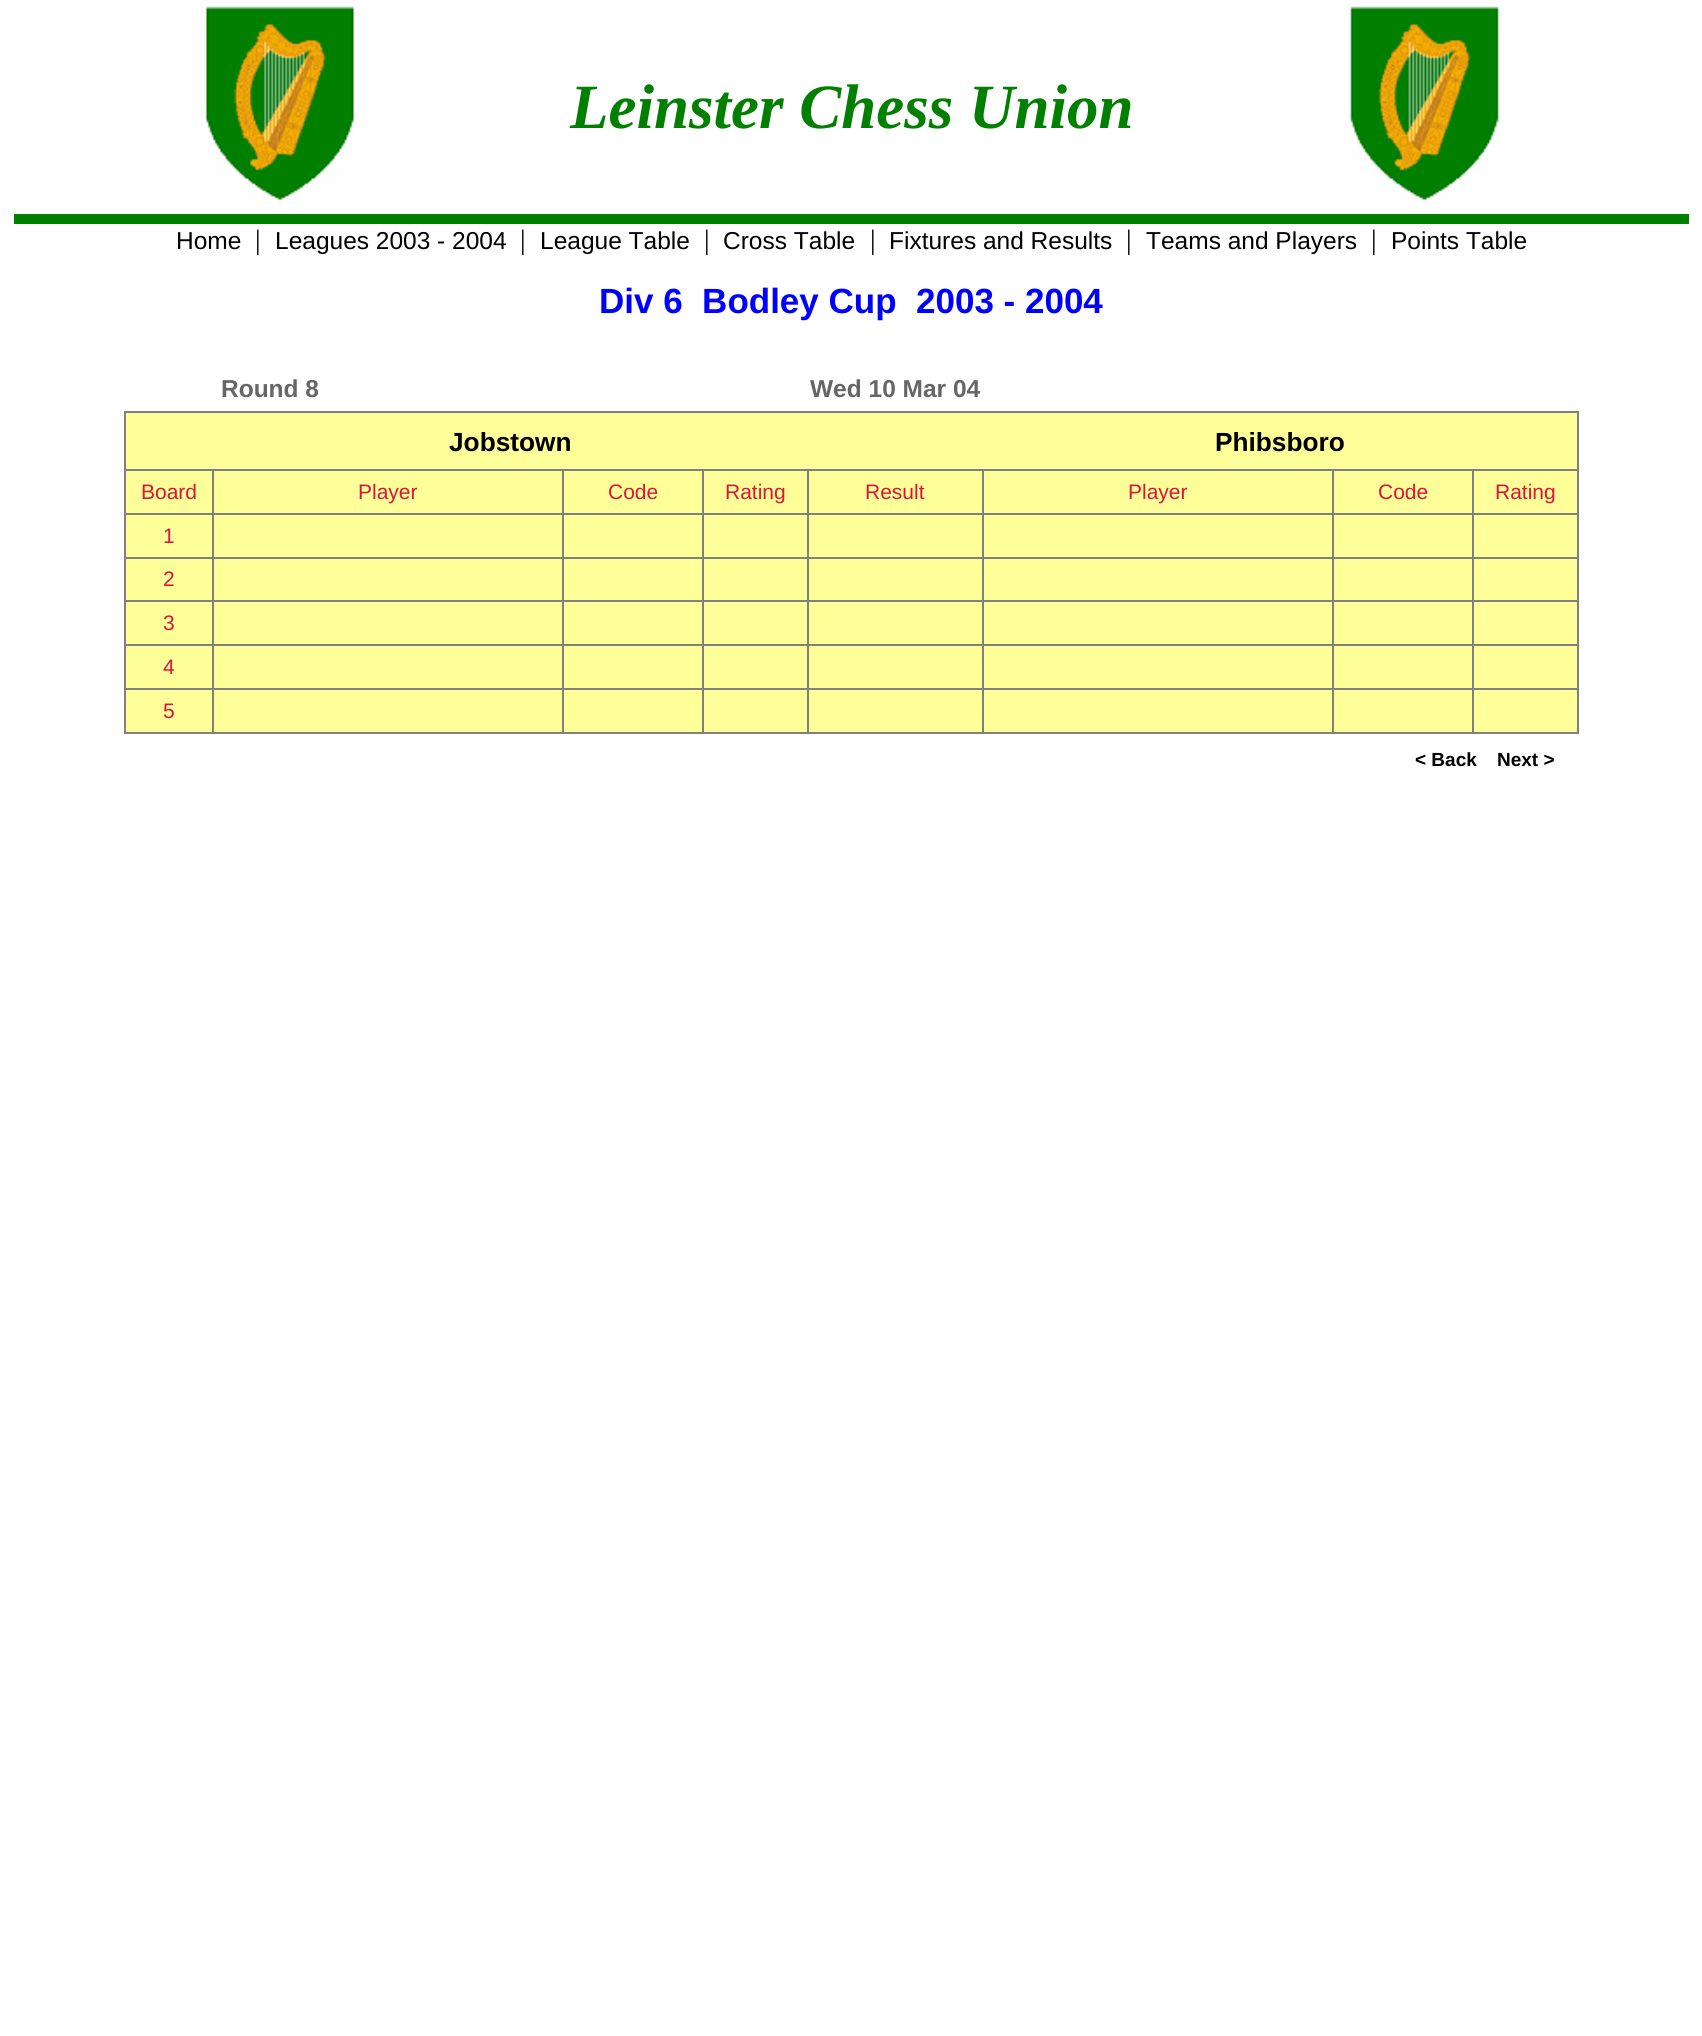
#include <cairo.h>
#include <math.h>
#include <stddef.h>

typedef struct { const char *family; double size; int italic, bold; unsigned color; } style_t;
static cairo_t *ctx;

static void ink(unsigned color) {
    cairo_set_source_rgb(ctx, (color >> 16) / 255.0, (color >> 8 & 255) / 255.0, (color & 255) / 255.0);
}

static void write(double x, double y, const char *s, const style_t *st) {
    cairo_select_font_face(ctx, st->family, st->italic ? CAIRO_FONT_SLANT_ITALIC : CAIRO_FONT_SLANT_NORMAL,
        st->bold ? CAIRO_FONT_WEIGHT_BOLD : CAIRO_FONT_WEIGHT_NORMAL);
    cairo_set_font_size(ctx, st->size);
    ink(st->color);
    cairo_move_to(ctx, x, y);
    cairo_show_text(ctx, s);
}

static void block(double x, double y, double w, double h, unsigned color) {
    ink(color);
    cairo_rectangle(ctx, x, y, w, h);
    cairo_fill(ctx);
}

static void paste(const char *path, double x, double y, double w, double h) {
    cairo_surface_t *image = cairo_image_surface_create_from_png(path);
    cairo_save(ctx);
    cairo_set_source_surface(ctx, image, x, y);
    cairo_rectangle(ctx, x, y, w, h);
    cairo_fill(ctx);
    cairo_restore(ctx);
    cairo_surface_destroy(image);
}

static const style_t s1 = {"Liberation Serif", 63, 1, 1, 0x007f00};
static const style_t s2 = {"Liberation Sans", 24.5, 0, 0, 0x000000};
static const style_t s3 = {"Liberation Serif", 28, 0, 0, 0x000000};
static const style_t s4 = {"Liberation Sans", 35, 0, 1, 0x0000ff};
static const style_t s5 = {"Liberation Sans", 24.5, 0, 1, 0x666666};
static const style_t s6 = {"Liberation Sans", 26.25, 0, 1, 0x000000};
static const style_t s7 = {"Liberation Sans", 21, 0, 0, 0xdc143c};
static const style_t s8 = {"Liberation Sans", 19, 0, 1, 0x000000};

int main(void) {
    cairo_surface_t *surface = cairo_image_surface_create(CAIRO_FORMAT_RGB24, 1702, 2036);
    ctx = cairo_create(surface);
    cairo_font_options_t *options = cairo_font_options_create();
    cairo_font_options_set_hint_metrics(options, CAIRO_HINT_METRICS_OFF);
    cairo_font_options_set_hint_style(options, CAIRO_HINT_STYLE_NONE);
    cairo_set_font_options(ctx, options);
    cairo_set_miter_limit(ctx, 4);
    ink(0xffffff);
    cairo_paint(ctx);
    block(14, 214, 1675, 10, 0x007f00);
    paste("pic1.png", 206, 6, 148, 194);
    write(570, 128, "Leinster Chess Union", &s1);
    paste("pic2.png", 1350, 6, 149, 194);
    write(176, 249, "Home", &s2);
    write(255, 249, "|", &s3);
    write(275, 249, "Leagues 2003 - 2004", &s2);
    write(520, 249, "|", &s3);
    write(540, 249, "League Table", &s2);
    write(704, 249, "|", &s3);
    write(723, 249, "Cross Table", &s2);
    write(870, 249, "|", &s3);
    write(889, 249, "Fixtures and Results", &s2);
    write(1126, 249, "|", &s3);
    write(1146, 249, "Teams and Players", &s2);
    write(1371, 249, "|", &s3);
    write(1391, 249, "Points Table", &s2);
    write(599, 313, "Div 6  Bodley Cup  2003 - 2004", &s4);
    write(221, 397, "Round 8", &s5);
    write(810, 397, "Wed 10 Mar 04", &s5);
    block(126, 413, 1451, 319, 0xffff99);
    block(124, 411, 1455, 2, 0x808080);
    block(1577, 411, 2, 322, 0x808080);
    block(124, 732, 1455, 2, 0x808080);
    block(124, 411, 2, 322, 0x808080);
    write(449, 451, "Jobstown", &s6);
    write(1215, 451, "Phibsboro", &s6);
    block(1472, 469, 107, 2, 0x808080);
    block(1472, 513, 107, 2, 0x808080);
    block(1472, 557, 107, 2, 0x808080);
    block(1472, 600, 107, 2, 0x808080);
    block(1472, 644, 107, 2, 0x808080);
    block(1472, 688, 107, 2, 0x808080);
    block(1472, 688, 2, 45, 0x808080);
    block(1332, 688, 142, 2, 0x808080);
    block(1472, 644, 2, 46, 0x808080);
    block(1332, 644, 142, 2, 0x808080);
    block(1472, 600, 2, 46, 0x808080);
    block(1332, 600, 142, 2, 0x808080);
    block(1472, 557, 2, 45, 0x808080);
    block(1332, 557, 142, 2, 0x808080);
    block(1472, 513, 2, 45, 0x808080);
    block(1332, 513, 142, 2, 0x808080);
    block(1472, 469, 2, 46, 0x808080);
    block(1332, 469, 142, 2, 0x808080);
    block(1332, 688, 2, 45, 0x808080);
    block(982, 688, 352, 2, 0x808080);
    block(1332, 644, 2, 46, 0x808080);
    block(982, 644, 352, 2, 0x808080);
    block(1332, 600, 2, 46, 0x808080);
    block(982, 600, 352, 2, 0x808080);
    block(1332, 557, 2, 45, 0x808080);
    block(982, 557, 352, 2, 0x808080);
    block(1332, 513, 2, 45, 0x808080);
    block(982, 513, 352, 2, 0x808080);
    block(1332, 469, 2, 46, 0x808080);
    block(982, 469, 352, 2, 0x808080);
    block(982, 688, 2, 45, 0x808080);
    block(807, 688, 177, 2, 0x808080);
    block(982, 644, 2, 46, 0x808080);
    block(807, 644, 177, 2, 0x808080);
    block(982, 600, 2, 46, 0x808080);
    block(807, 600, 177, 2, 0x808080);
    block(982, 557, 2, 45, 0x808080);
    block(807, 557, 177, 2, 0x808080);
    block(982, 513, 2, 45, 0x808080);
    block(807, 513, 177, 2, 0x808080);
    block(982, 469, 2, 46, 0x808080);
    block(807, 469, 177, 2, 0x808080);
    block(807, 688, 2, 45, 0x808080);
    block(702, 688, 107, 2, 0x808080);
    block(807, 644, 2, 46, 0x808080);
    block(702, 644, 107, 2, 0x808080);
    block(807, 600, 2, 46, 0x808080);
    block(702, 600, 107, 2, 0x808080);
    block(807, 557, 2, 45, 0x808080);
    block(702, 557, 107, 2, 0x808080);
    block(807, 513, 2, 45, 0x808080);
    block(702, 513, 107, 2, 0x808080);
    block(807, 469, 2, 46, 0x808080);
    block(702, 469, 107, 2, 0x808080);
    block(702, 688, 2, 45, 0x808080);
    block(562, 688, 142, 2, 0x808080);
    block(702, 644, 2, 46, 0x808080);
    block(562, 644, 142, 2, 0x808080);
    block(702, 600, 2, 46, 0x808080);
    block(562, 600, 142, 2, 0x808080);
    block(702, 557, 2, 45, 0x808080);
    block(562, 557, 142, 2, 0x808080);
    block(702, 513, 2, 45, 0x808080);
    block(562, 513, 142, 2, 0x808080);
    block(702, 469, 2, 46, 0x808080);
    block(562, 469, 142, 2, 0x808080);
    block(562, 688, 2, 45, 0x808080);
    block(212, 688, 352, 2, 0x808080);
    block(562, 644, 2, 46, 0x808080);
    block(212, 644, 352, 2, 0x808080);
    block(562, 600, 2, 46, 0x808080);
    block(212, 600, 352, 2, 0x808080);
    block(562, 557, 2, 45, 0x808080);
    block(212, 557, 352, 2, 0x808080);
    block(562, 513, 2, 45, 0x808080);
    block(212, 513, 352, 2, 0x808080);
    block(562, 469, 2, 46, 0x808080);
    block(212, 469, 352, 2, 0x808080);
    block(212, 688, 2, 45, 0x808080);
    block(124, 688, 90, 2, 0x808080);
    block(212, 644, 2, 46, 0x808080);
    block(124, 644, 90, 2, 0x808080);
    block(212, 600, 2, 46, 0x808080);
    block(124, 600, 90, 2, 0x808080);
    block(212, 557, 2, 45, 0x808080);
    block(124, 557, 90, 2, 0x808080);
    block(212, 513, 2, 45, 0x808080);
    block(124, 513, 90, 2, 0x808080);
    block(212, 469, 2, 46, 0x808080);
    block(124, 469, 90, 2, 0x808080);
    write(141, 499, "Board", &s7);
    write(358, 499, "Player", &s7);
    write(608, 499, "Code", &s7);
    write(725, 499, "Rating", &s7);
    write(865, 499, "Result", &s7);
    write(1128, 499, "Player", &s7);
    write(1378, 499, "Code", &s7);
    write(1495, 499, "Rating", &s7);
    write(163, 543, "1", &s7);
    write(163, 586, "2", &s7);
    write(163, 630, "3", &s7);
    write(163, 674, "4", &s7);
    write(163, 718, "5", &s7);
    write(1415, 766, "< Back", &s8);
    write(1497, 766, "Next >", &s8);
    cairo_surface_write_to_png(surface, "screenshot.png");
    cairo_font_options_destroy(options);
    cairo_destroy(ctx);
    cairo_surface_destroy(surface);
    return 0;
}
